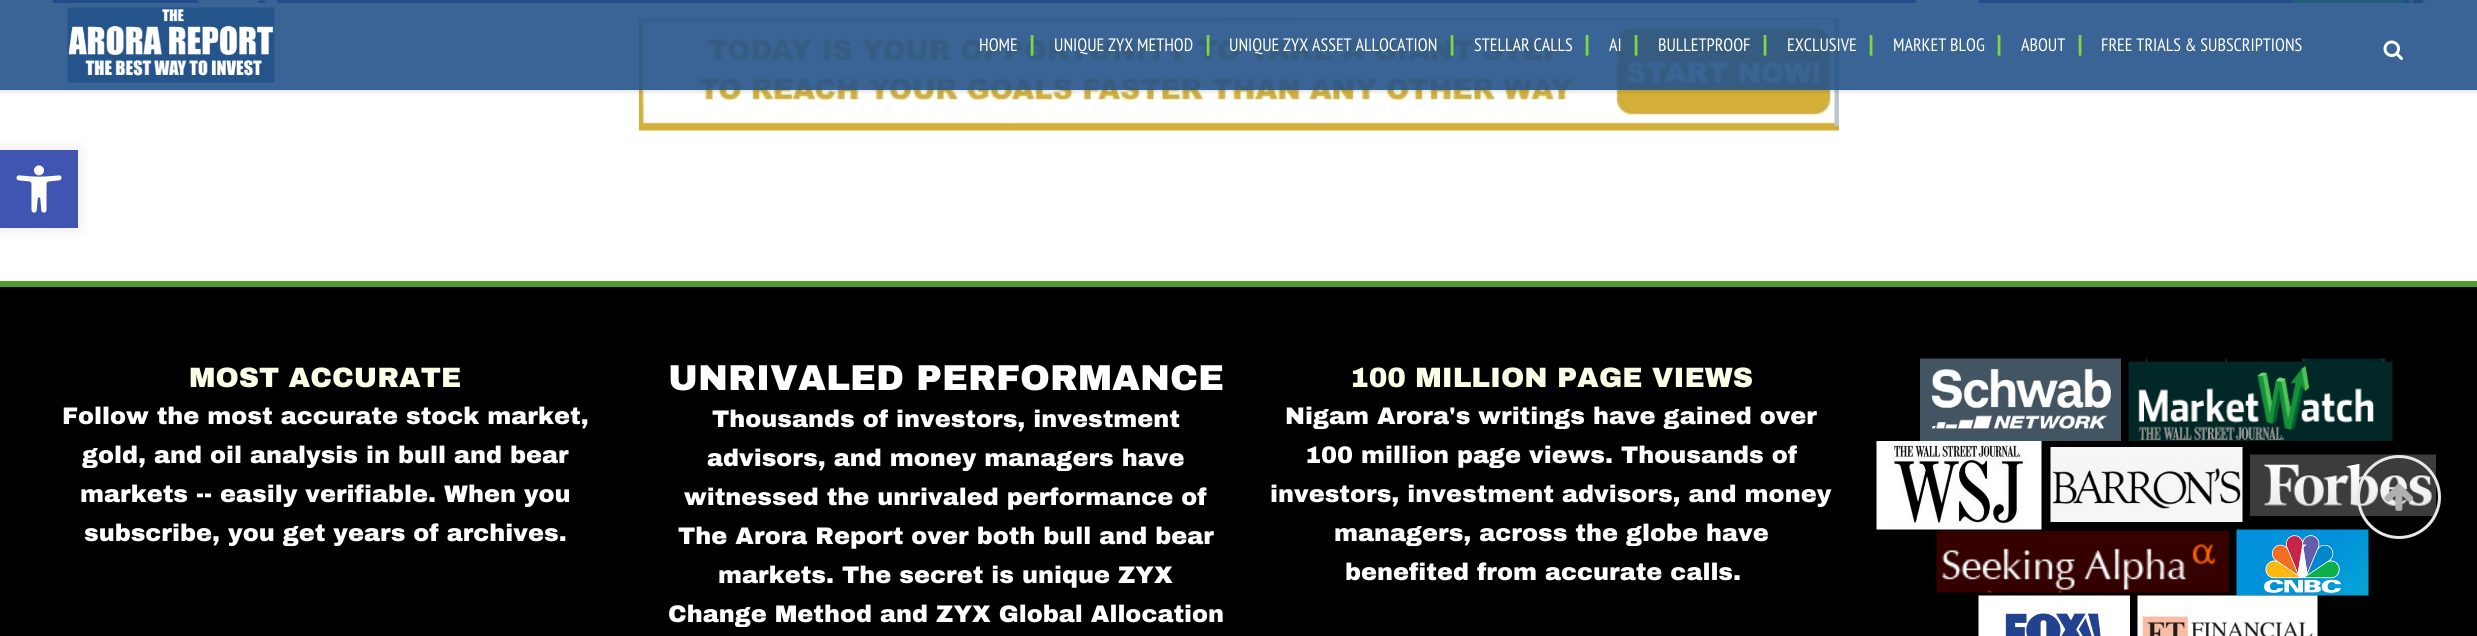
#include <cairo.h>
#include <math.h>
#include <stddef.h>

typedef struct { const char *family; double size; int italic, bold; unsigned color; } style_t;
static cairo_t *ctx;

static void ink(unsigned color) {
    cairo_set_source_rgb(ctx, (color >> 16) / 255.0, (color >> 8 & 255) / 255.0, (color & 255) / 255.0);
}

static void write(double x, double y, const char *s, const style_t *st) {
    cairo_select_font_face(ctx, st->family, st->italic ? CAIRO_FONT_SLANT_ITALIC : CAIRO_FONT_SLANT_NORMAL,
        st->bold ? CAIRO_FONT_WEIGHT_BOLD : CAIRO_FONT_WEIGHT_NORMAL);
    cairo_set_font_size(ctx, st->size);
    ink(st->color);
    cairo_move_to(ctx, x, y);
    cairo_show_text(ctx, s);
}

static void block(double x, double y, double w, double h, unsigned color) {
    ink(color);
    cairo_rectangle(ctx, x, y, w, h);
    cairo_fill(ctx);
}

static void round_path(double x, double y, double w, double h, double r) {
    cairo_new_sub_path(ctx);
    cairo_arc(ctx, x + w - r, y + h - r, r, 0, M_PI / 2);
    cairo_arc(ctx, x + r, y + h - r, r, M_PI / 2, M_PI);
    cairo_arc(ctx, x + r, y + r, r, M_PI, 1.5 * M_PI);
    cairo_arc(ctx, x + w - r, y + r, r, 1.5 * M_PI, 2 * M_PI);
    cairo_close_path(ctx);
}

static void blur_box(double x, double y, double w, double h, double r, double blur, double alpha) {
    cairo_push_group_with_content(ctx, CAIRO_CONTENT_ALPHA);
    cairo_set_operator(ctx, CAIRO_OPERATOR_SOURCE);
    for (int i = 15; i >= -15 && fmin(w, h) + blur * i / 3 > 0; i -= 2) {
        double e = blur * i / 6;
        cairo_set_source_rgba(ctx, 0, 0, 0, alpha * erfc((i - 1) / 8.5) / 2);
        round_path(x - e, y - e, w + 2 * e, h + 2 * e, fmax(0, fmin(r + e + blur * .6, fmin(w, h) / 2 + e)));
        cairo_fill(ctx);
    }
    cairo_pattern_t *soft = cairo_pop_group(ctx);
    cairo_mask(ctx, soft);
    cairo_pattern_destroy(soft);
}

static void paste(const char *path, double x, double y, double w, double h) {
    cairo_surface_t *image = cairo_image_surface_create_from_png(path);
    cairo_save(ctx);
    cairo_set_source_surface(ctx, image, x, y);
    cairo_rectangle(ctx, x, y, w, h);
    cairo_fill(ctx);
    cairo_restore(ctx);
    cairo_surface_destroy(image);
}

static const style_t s1 = {"PT Sans Narrow", 18, 0, 0, 0xffffff};
static const style_t s2 = {"Archivo Black Black", 22, 0, 0, 0x81d742};
static const style_t s3 = {"Archivo Black Black", 28, 0, 0, 0xfbffe5};
static const style_t s4 = {"Archivo Black Black", 24, 0, 0, 0xffffff};
static const style_t s5 = {"Archivo Black Black", 36, 0, 0, 0xffffff};

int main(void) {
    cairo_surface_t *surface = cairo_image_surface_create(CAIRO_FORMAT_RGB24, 2477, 636);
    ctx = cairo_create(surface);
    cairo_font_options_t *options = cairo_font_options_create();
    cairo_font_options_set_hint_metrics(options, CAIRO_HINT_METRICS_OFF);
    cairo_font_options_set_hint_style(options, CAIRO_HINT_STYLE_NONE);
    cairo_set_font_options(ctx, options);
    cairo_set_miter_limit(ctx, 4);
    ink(0xffffff);
    cairo_paint(ctx);
    ink(0x000000);
    blur_box(0, 150, 78, 78, 0, 7.5, 0.1);
    block(0, 150, 78, 78, 0x4054b2);
    paste("pic1.png", 16, 165, 46, 48);
    paste("pic2.png", 52, 0, 2374, 3);
    paste("pic3.png", 639, 18, 1200, 113);
    cairo_save(ctx);
    cairo_rectangle(ctx, 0, 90, 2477, 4);
    cairo_clip(ctx);
    ink(0x000000);
    blur_box(0, 2, 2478, 90, 0, 2, 0.11);
    cairo_restore(ctx);
    cairo_set_source_rgba(ctx, 0.145, 0.329, 0.541, 0.9);
    cairo_rectangle(ctx, 0, 0, 2477, 90);
    cairo_fill(ctx);
    paste("pic4.png", 67, 7, 208, 76);
    write(979, 51, "HOME", &s1);
    write(1029, 51, "|", &s2);
    write(1054, 51, "UNIQUE ZYX METHOD", &s1);
    write(1205, 51, "|", &s2);
    write(1229, 51, "UNIQUE ZYX ASSET ALLOCATION", &s1);
    write(1449, 51, "|", &s2);
    write(1474, 51, "STELLAR CALLS", &s1);
    write(1584, 51, "|", &s2);
    write(1609, 51, "AI", &s1);
    write(1633, 51, "|", &s2);
    write(1658, 51, "BULLETPROOF", &s1);
    write(1762, 51, "|", &s2);
    write(1787, 51, "EXCLUSIVE", &s1);
    write(1868, 51, "|", &s2);
    write(1893, 51, "MARKET BLOG", &s1);
    write(1996, 51, "|", &s2);
    write(2021, 51, "ABOUT", &s1);
    write(2077, 51, "|", &s2);
    write(2101, 51, "FREE TRIALS & SUBSCRIPTIONS", &s1);
    paste("pic5.png", 2383, 40, 20, 20);
    block(0, 287, 2477, 349, 0x000000);
    block(0, 281, 2477, 6, 0x529b30);
    write(189, 387, "MOST ACCURATE", &s3);
    write(62, 424, "Follow the most accurate stock market,", &s4);
    write(82, 463, "gold, and oil analysis in bull and bear", &s4);
    write(80, 502, "markets -- easily verifiable. When you", &s4);
    write(84, 541, "subscribe, you get years of archives.", &s4);
    write(668, 390, "UNRIVALED PERFORMANCE", &s5);
    write(712, 427, "Thousands of investors, investment", &s4);
    write(707, 466, "advisors, and money managers have", &s4);
    write(684, 505, "witnessed the unrivaled performance of", &s4);
    write(678, 544, "The Arora Report over both bull and bear", &s4);
    write(718, 583, "markets. The secret is unique ZYX", &s4);
    write(668, 622, "Change Method and ZYX Global Allocation", &s4);
    write(1350, 387, "100 MILLION PAGE VIEWS", &s3);
    write(1285, 424, "Nigam Arora's writings have gained over", &s4);
    write(1305, 463, "100 million page views. Thousands of", &s4);
    write(1270, 502, "investors, investment advisors, and money", &s4);
    write(1334, 541, "managers, across the globe have", &s4);
    write(1345, 580, "benefited from accurate calls.", &s4);
    paste("pic6.png", 1920, 358, 201, 83);
    paste("pic7.png", 2128, 358, 265, 83);
    paste("pic8.png", 1876, 441, 166, 89);
    paste("pic9.png", 2050, 447, 193, 75);
    paste("pic10.png", 2250, 454, 186, 62);
    paste("pic11.png", 1936, 531, 293, 62);
    paste("pic12.png", 2236, 529, 133, 67);
    paste("pic13.png", 1978, 595, 152, 41);
    paste("pic14.png", 2137, 595, 181, 41);
    cairo_arc(ctx, 2399, 497, 40.5, 0, 2 * M_PI);
    ink(0xe8e8e8);
    cairo_set_line_width(ctx, 3);
    cairo_stroke(ctx);
    paste("pic15.png", 2384, 483, 30, 28);
    cairo_surface_write_to_png(surface, "screenshot.png");
    cairo_font_options_destroy(options);
    cairo_destroy(ctx);
    cairo_surface_destroy(surface);
    return 0;
}
